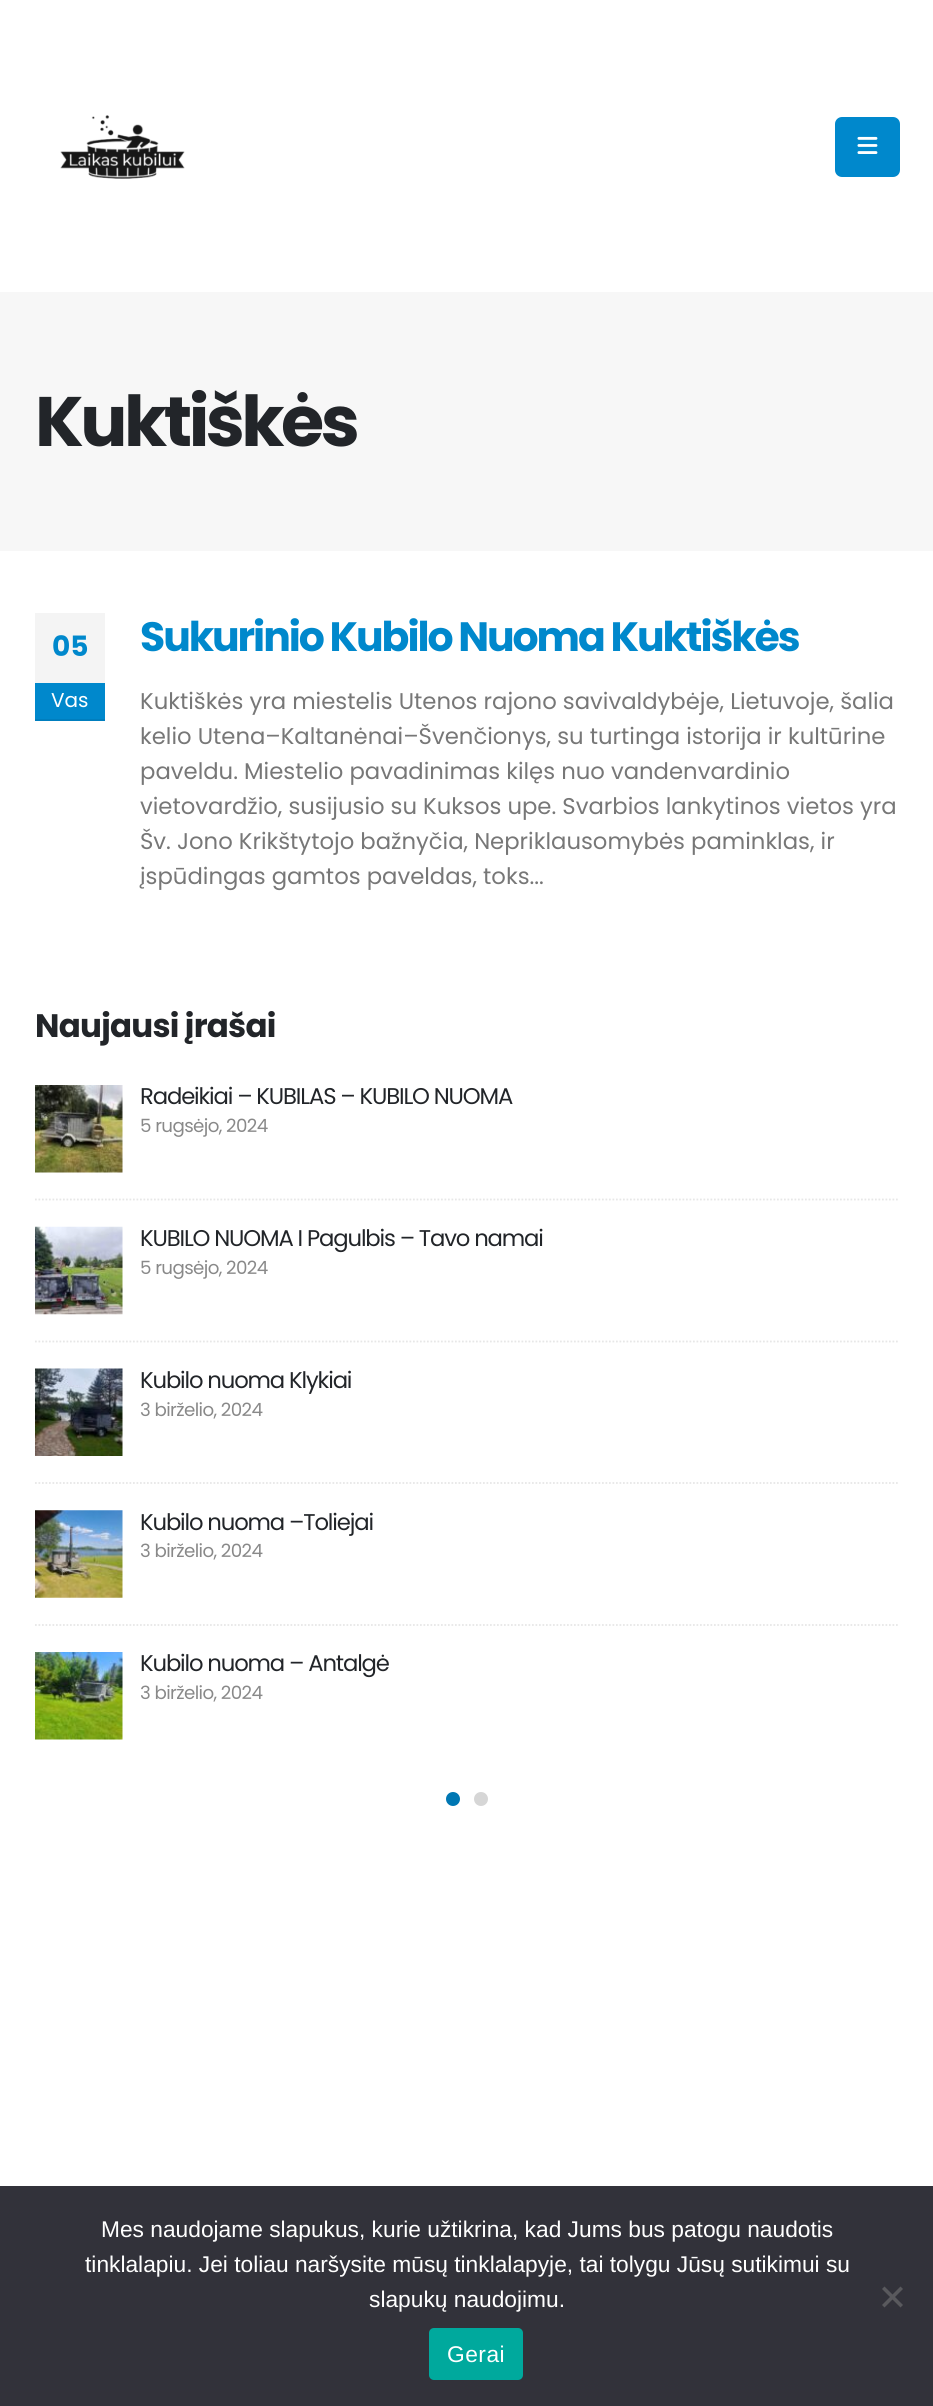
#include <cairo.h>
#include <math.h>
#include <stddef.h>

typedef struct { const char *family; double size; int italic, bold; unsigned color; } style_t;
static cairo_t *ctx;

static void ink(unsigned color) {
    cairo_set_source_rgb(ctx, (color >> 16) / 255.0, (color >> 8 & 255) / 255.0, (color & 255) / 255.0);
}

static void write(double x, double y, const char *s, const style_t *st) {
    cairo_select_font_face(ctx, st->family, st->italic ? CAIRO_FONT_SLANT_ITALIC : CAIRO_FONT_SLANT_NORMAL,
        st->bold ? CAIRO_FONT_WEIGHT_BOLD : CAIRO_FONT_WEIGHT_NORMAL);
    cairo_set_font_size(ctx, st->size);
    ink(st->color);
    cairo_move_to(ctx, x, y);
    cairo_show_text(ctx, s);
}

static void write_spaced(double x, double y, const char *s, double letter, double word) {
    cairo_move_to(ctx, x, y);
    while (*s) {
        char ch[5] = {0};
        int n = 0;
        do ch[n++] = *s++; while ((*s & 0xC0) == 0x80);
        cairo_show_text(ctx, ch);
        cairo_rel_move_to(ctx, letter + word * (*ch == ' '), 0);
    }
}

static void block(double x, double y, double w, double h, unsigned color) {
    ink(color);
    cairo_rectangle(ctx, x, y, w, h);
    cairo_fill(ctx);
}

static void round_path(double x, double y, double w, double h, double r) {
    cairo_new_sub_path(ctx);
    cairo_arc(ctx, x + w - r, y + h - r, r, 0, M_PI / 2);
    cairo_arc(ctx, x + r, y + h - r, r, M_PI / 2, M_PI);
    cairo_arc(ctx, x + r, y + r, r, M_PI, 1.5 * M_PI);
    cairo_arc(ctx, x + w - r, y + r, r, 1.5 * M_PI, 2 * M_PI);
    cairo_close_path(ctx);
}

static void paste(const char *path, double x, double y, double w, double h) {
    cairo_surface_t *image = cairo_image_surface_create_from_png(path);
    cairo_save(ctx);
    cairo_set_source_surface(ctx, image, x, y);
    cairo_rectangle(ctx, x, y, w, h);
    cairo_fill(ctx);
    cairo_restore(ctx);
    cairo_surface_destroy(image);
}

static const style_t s1 = {"Poppins", 28, 0, 1, 0x0088cc};
static const style_t s2 = {"Poppins", 20, 0, 0, 0xffffff};
static const style_t s3 = {"Poppins", 22.75, 0, 0, 0x777777};
static const style_t s4 = {"Liberation Sans", 22.75, 0, 0, 0xffffff};

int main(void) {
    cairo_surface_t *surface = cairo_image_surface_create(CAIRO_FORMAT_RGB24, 933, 2406);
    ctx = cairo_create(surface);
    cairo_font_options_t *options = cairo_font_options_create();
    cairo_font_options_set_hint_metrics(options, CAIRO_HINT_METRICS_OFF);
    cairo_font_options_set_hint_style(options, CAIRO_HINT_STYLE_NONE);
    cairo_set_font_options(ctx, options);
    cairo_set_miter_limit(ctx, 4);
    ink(0xffffff);
    cairo_paint(ctx);
    paste("pic1.png", 60, 115, 125, 64);
    ink(0x0088cc);
    round_path(835, 117, 65, 60, 7);
    cairo_fill(ctx);
    paste("pic2.png", 857, 136, 21, 18);
    block(0, 292, 933, 259, 0xf7f7f7);
    cairo_select_font_face(ctx, "Poppins", CAIRO_FONT_SLANT_NORMAL, CAIRO_FONT_WEIGHT_BOLD);
    cairo_set_font_size(ctx, 70);
    ink(0x222529);
    write_spaced(35, 446, "Kuktiškės", -3.5, 0);
    block(35, 683, 70, 36, 0x0088cc);
    block(35, 613, 70, 70, 0xf4f4f4);
    write(52, 656, "05", &s1);
    block(35, 719, 70, 2, 0x007ebe);
    write(51, 707, "Vas", &s2);
    cairo_select_font_face(ctx, "Poppins", CAIRO_FONT_SLANT_NORMAL, CAIRO_FONT_WEIGHT_BOLD);
    cairo_set_font_size(ctx, 41);
    ink(0x0088cc);
    write_spaced(140, 651, "Sukurinio Kubilo Nuoma Kuktiškės", -2.05, 0);
    write(140, 709, "Kuktiškės yra miestelis Utenos rajono savivaldybėje, Lietuvoje, šalia", &s3);
    write(140, 744, "kelio Utena–Kaltanėnai–Švenčionys, su turtinga istorija ir kultūrine", &s3);
    write(140, 779, "paveldu. Miestelio pavadinimas kilęs nuo vandenvardinio", &s3);
    write(140, 814, "vietovardžio, susijusio su Kuksos upe. Svarbios lankytinos vietos yra", &s3);
    write(140, 849, "Šv. Jono Krikštytojo bažnyčia, Nepriklausomybės paminklas, ir", &s3);
    write(140, 884, "įspūdingas gamtos paveldas, toks...", &s3);
    cairo_select_font_face(ctx, "Poppins", CAIRO_FONT_SLANT_NORMAL, CAIRO_FONT_WEIGHT_BOLD);
    cairo_set_font_size(ctx, 32.5);
    ink(0x222529);
    write_spaced(35, 1037, "Naujausi įrašai", -0.75, 0);
    paste("pic3.png", 35, 1085, 88, 88);
    cairo_select_font_face(ctx, "Poppins", CAIRO_FONT_SLANT_NORMAL, CAIRO_FONT_WEIGHT_NORMAL);
    cairo_set_font_size(ctx, 22.75);
    write_spaced(140, 1104, "Radeikiai – KUBILAS – KUBILO NUOMA", -1.15, 0);
    cairo_set_font_size(ctx, 18.25);
    ink(0x898989);
    write_spaced(140, 1132, "5 rugsėjo, 2024", -0.6, 0);
    cairo_new_path(ctx);
    cairo_move_to(ctx, 35, 1199.5);
    cairo_line_to(ctx, 899.5, 1199.5);
    ink(0xe7e7e7);
    cairo_set_line_width(ctx, 1.8);
    cairo_set_dash(ctx, (double[]){1.75, 1.75}, 2, 0);
    cairo_stroke(ctx);
    paste("pic4.png", 35, 1226, 88, 89);
    cairo_set_font_size(ctx, 22.75);
    ink(0x222529);
    write_spaced(140, 1246, "KUBILO NUOMA I Pagulbis – Tavo namai", -1.15, 0);
    cairo_set_font_size(ctx, 18.25);
    ink(0x898989);
    write_spaced(140, 1274, "5 rugsėjo, 2024", -0.6, 0);
    cairo_new_path(ctx);
    cairo_move_to(ctx, 35, 1341.5);
    cairo_line_to(ctx, 899.5, 1341.5);
    ink(0xe7e7e7);
    cairo_stroke(ctx);
    paste("pic5.png", 35, 1368, 88, 88);
    cairo_set_font_size(ctx, 22.75);
    ink(0x222529);
    write_spaced(140, 1388, "Kubilo nuoma Klykiai", -1.15, 0);
    cairo_set_font_size(ctx, 18.25);
    ink(0x898989);
    write_spaced(140, 1416, "3 birželio, 2024", -0.6, 0);
    cairo_new_path(ctx);
    cairo_move_to(ctx, 35, 1483);
    cairo_line_to(ctx, 899.5, 1483);
    ink(0xe7e7e7);
    cairo_stroke(ctx);
    paste("pic6.png", 35, 1510, 88, 88);
    cairo_set_font_size(ctx, 22.75);
    ink(0x222529);
    write_spaced(140, 1530, "Kubilo nuoma –Toliejai", -1.15, 0);
    cairo_set_font_size(ctx, 18.25);
    ink(0x898989);
    write_spaced(140, 1557, "3 birželio, 2024", -0.6, 0);
    cairo_new_path(ctx);
    cairo_move_to(ctx, 35, 1625);
    cairo_line_to(ctx, 899.5, 1625);
    ink(0xe7e7e7);
    cairo_stroke(ctx);
    paste("pic7.png", 35, 1652, 88, 88);
    cairo_set_font_size(ctx, 22.75);
    ink(0x222529);
    write_spaced(140, 1671, "Kubilo nuoma – Antalgė", -1.15, 0);
    cairo_set_font_size(ctx, 18.25);
    ink(0x898989);
    write_spaced(140, 1699, "3 birželio, 2024", -0.6, 0);
    ink(0x0077b3);
    cairo_new_path(ctx);
    cairo_arc(ctx, 453, 1799, 7, 0, 2 * M_PI);
    cairo_fill(ctx);
    ink(0xd6d6d6);
    cairo_arc(ctx, 481, 1799, 7, 0, 2 * M_PI);
    cairo_fill(ctx);
    block(0, 2186, 933, 220, 0x32323a);
    write(101, 2237, "Mes naudojame slapukus, kurie užtikrina, kad Jums bus patogu naudotis", &s4);
    write(85, 2272, "tinklalapiu. Jei toliau naršysite mūsų tinklalapyje, tai tolygu Jūsų sutikimui su", &s4);
    write(369, 2307, "slapukų naudojimu.", &s4);
    ink(0x59595d);
    cairo_new_path(ctx);
    cairo_move_to(ctx, 900.5, 2286.5);
    cairo_line_to(ctx, 903, 2289);
    cairo_line_to(ctx, 884.5, 2307.5);
    cairo_line_to(ctx, 882, 2305);
    cairo_close_path(ctx);
    cairo_fill(ctx);
    cairo_new_path(ctx);
    cairo_move_to(ctx, 882, 2289);
    cairo_line_to(ctx, 884.5, 2286.5);
    cairo_line_to(ctx, 903, 2305);
    cairo_line_to(ctx, 900.5, 2307.5);
    cairo_close_path(ctx);
    cairo_fill(ctx);
    ink(0x00a99d);
    round_path(429, 2328, 94, 52, 5);
    cairo_fill(ctx);
    ink(0xffffff);
    write_spaced(447, 2362, "Gerai", 0.5, 0);
    cairo_surface_write_to_png(surface, "screenshot.png");
    cairo_font_options_destroy(options);
    cairo_destroy(ctx);
    cairo_surface_destroy(surface);
    return 0;
}
